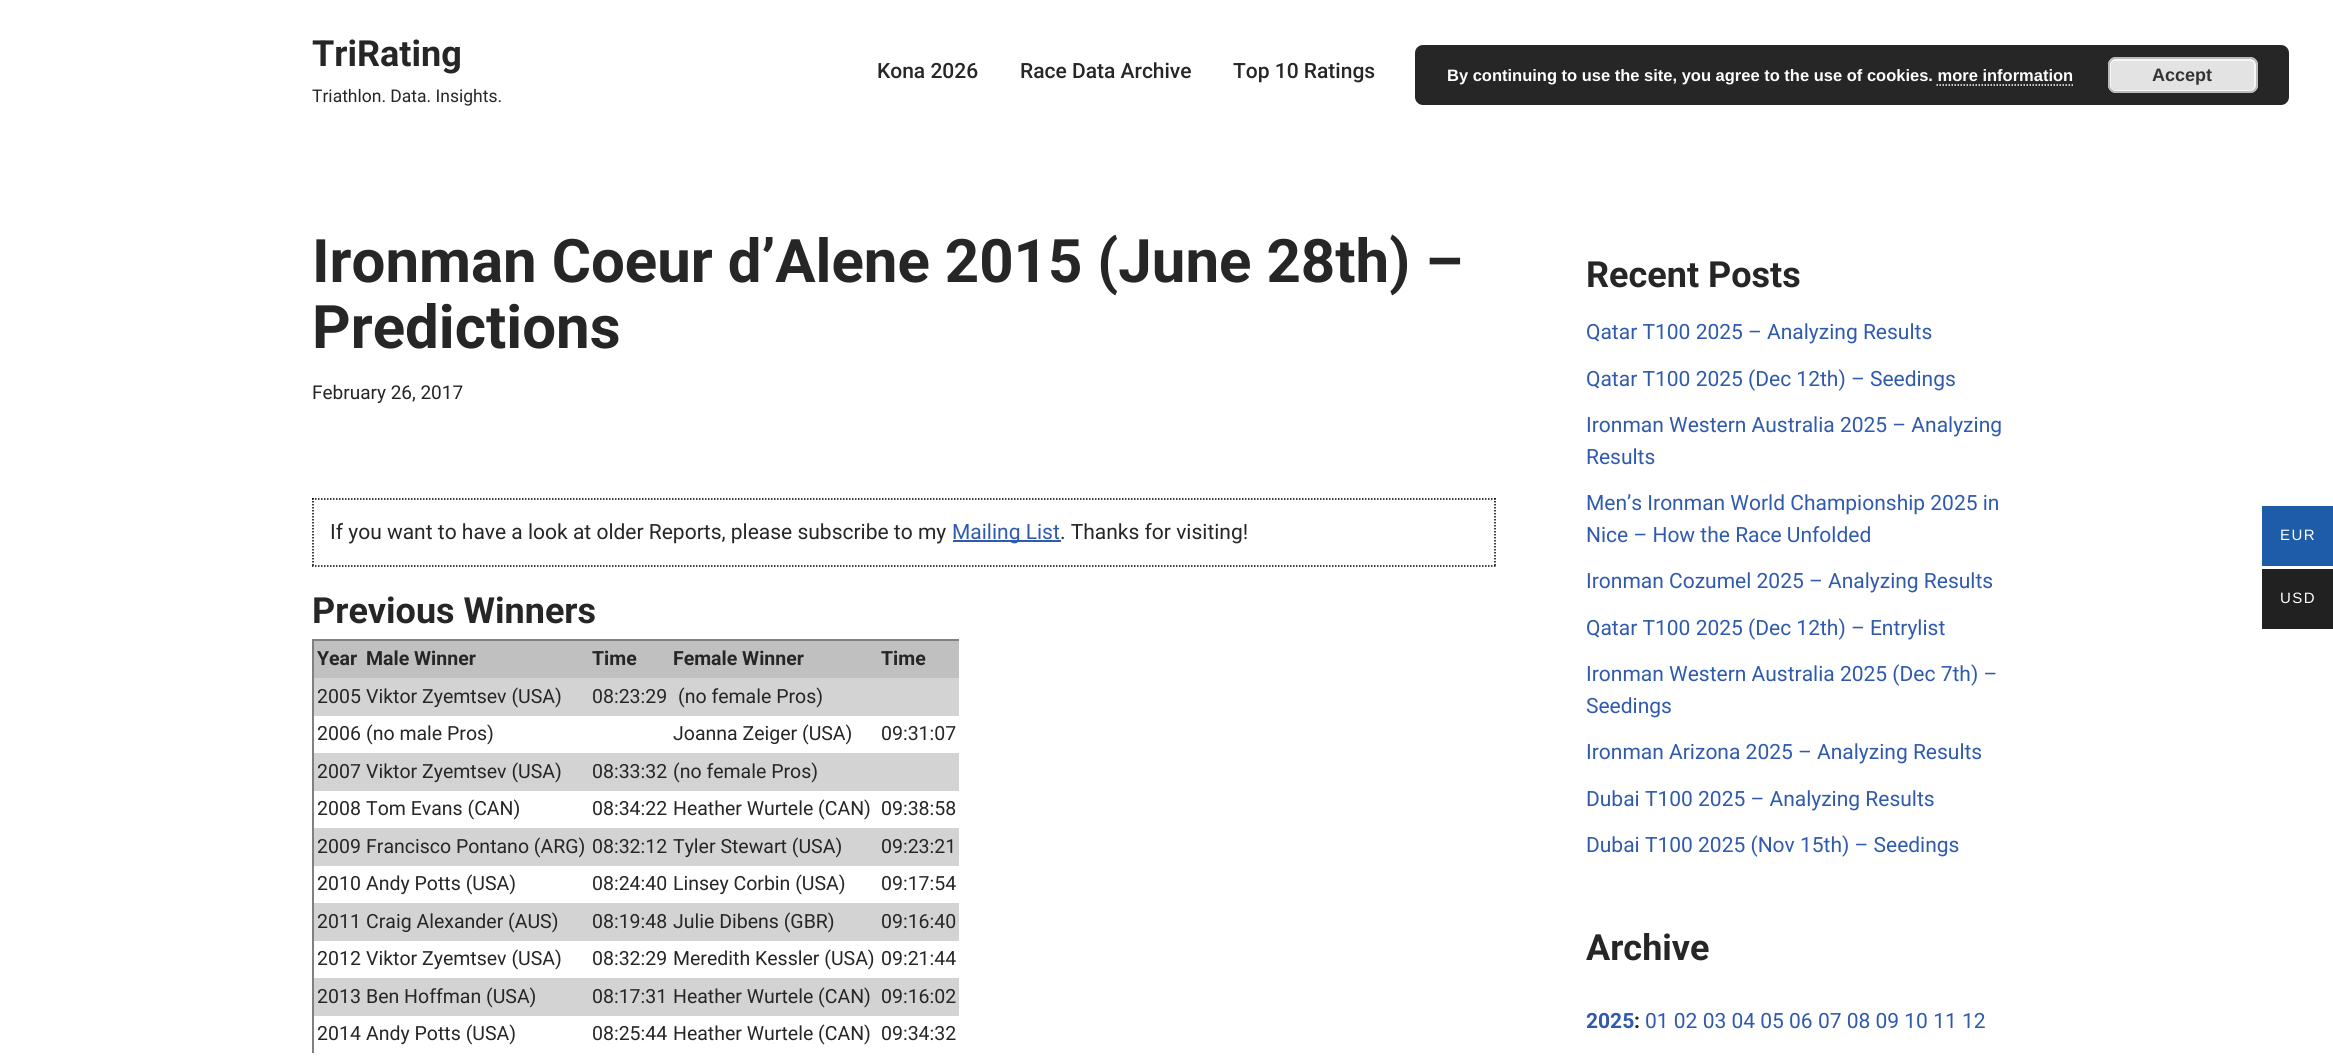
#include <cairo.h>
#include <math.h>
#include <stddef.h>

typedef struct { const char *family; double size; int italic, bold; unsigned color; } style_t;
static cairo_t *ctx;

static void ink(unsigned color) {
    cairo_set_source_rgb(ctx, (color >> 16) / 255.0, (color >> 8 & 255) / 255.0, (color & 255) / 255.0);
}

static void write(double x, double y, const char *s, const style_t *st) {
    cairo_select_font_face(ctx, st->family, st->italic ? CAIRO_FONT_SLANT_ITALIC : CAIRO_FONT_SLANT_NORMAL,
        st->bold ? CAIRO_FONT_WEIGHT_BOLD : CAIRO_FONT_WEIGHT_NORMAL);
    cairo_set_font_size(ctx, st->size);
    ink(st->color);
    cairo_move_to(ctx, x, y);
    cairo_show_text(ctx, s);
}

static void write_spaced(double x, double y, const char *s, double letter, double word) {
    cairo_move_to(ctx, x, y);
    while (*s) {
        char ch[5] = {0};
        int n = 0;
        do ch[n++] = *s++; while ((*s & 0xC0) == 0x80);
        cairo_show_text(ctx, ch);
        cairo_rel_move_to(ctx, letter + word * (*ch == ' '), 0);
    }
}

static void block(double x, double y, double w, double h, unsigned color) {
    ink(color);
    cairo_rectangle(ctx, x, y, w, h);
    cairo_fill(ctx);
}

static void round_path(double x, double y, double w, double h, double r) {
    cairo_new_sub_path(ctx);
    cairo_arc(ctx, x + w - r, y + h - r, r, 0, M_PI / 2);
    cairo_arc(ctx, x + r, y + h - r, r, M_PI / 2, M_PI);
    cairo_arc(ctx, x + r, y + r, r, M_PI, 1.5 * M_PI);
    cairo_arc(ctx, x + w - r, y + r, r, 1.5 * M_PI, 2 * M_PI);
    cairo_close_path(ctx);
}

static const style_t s1 = {"Roboto", 36, 0, 1, 0x272626};
static const style_t s2 = {"Roboto", 17.5, 0, 0, 0x272626};
static const style_t s3 = {"Roboto Medium", 21, 0, 0, 0x272626};
static const style_t s4 = {"Roboto", 60, 0, 1, 0x272626};
static const style_t s5 = {"Roboto", 19, 0, 0, 0x272626};
static const style_t s6 = {"Roboto", 21, 0, 0, 0x272626};
static const style_t s7 = {"Roboto", 21, 0, 0, 0x2f5aae};
static const style_t s8 = {"Roboto", 19.5, 0, 1, 0x272626};
static const style_t s9 = {"Roboto", 19.5, 0, 0, 0x272626};
static const style_t s10 = {"Roboto", 21, 0, 1, 0x2f5aae};
static const style_t s11 = {"Roboto", 21, 0, 1, 0x272626};
static const style_t s12 = {"Liberation Sans", 16.5, 0, 1, 0xffffff};
static const style_t s13 = {"Liberation Sans", 18, 0, 1, 0x333333};

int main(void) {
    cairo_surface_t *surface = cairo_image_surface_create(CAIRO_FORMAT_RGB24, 2333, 1056);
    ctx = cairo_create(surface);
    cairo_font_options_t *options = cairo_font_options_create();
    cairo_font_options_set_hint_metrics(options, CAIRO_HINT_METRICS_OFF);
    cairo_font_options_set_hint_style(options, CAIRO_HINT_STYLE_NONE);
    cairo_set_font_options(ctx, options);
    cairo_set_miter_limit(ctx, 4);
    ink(0xffffff);
    cairo_paint(ctx);
    write(312, 66, "TriRating", &s1);
    write(312, 102, "Triathlon. Data. Insights.", &s2);
    write(877, 78, "Kona 2026", &s3);
    write(1020, 78, "Race Data Archive", &s3);
    write(1233, 78, "Top 10 Ratings", &s3);
    write(312, 282, "Ironman Coeur d’Alene 2015 (June 28th) –", &s4);
    write(312, 348, "Predictions", &s4);
    write(312, 399, "February 26, 2017", &s5);
    cairo_new_path(ctx);
    cairo_move_to(ctx, 312, 499);
    cairo_line_to(ctx, 1495.5, 499);
    ink(0x000000);
    cairo_set_line_width(ctx, 1.5);
    cairo_set_dash(ctx, (double[]){1.5, 1.5}, 2, 0);
    cairo_stroke(ctx);
    cairo_new_path(ctx);
    cairo_move_to(ctx, 1495, 498);
    cairo_line_to(ctx, 1495, 567);
    cairo_stroke(ctx);
    cairo_new_path(ctx);
    cairo_move_to(ctx, 312, 566);
    cairo_line_to(ctx, 1495.5, 566);
    cairo_stroke(ctx);
    cairo_new_path(ctx);
    cairo_move_to(ctx, 313, 498);
    cairo_line_to(ctx, 313, 567);
    cairo_stroke(ctx);
    write(330, 539, "If you want to have a look at older Reports, please subscribe to my", &s6);
    block(953, 540, 108, 2, 0x2f5aae);
    write(952, 539, "Mailing List", &s7);
    write(1060, 539, ". Thanks for visiting!", &s6);
    write(312, 623, "Previous Winners", &s1);
    block(312, 639, 647, 2, 0x808080);
    block(312, 639, 2, 414, 0x808080);
    block(314, 641, 645, 37, 0xc0c0c0);
    write(317, 665, "Year", &s8);
    write(366, 665, "Male Winner", &s8);
    write(592, 665, "Time", &s8);
    write(673, 665, "Female Winner", &s8);
    write(881, 665, "Time", &s8);
    block(314, 678, 645, 38, 0xd3d3d3);
    write(317, 703, "2005", &s9);
    write(366, 703, "Viktor Zyemtsev (USA)", &s9);
    write(592, 703, "08:23:29", &s9);
    write(678, 703, "(no female Pros)", &s9);
    write(317, 740, "2006", &s9);
    write(366, 740, "(no male Pros)", &s9);
    write(673, 740, "Joanna Zeiger (USA)", &s9);
    write(881, 740, "09:31:07", &s9);
    block(314, 753, 645, 38, 0xd3d3d3);
    write(317, 778, "2007", &s9);
    write(366, 778, "Viktor Zyemtsev (USA)", &s9);
    write(592, 778, "08:33:32", &s9);
    write(673, 778, "(no female Pros)", &s9);
    write(317, 815, "2008", &s9);
    write(366, 815, "Tom Evans (CAN)", &s9);
    write(592, 815, "08:34:22", &s9);
    write(673, 815, "Heather Wurtele (CAN)", &s9);
    write(881, 815, "09:38:58", &s9);
    block(314, 828, 645, 38, 0xd3d3d3);
    write(317, 853, "2009", &s9);
    write(366, 853, "Francisco Pontano (ARG)", &s9);
    write(592, 853, "08:32:12", &s9);
    write(673, 853, "Tyler Stewart (USA)", &s9);
    write(881, 853, "09:23:21", &s9);
    write(317, 890, "2010", &s9);
    write(366, 890, "Andy Potts (USA)", &s9);
    write(592, 890, "08:24:40", &s9);
    write(673, 890, "Linsey Corbin (USA)", &s9);
    write(881, 890, "09:17:54", &s9);
    block(314, 903, 645, 38, 0xd3d3d3);
    write(317, 928, "2011", &s9);
    write(366, 928, "Craig Alexander (AUS)", &s9);
    write(592, 928, "08:19:48", &s9);
    write(673, 928, "Julie Dibens (GBR)", &s9);
    write(881, 928, "09:16:40", &s9);
    write(317, 965, "2012", &s9);
    write(366, 965, "Viktor Zyemtsev (USA)", &s9);
    write(592, 965, "08:32:29", &s9);
    write(673, 965, "Meredith Kessler (USA)", &s9);
    write(881, 965, "09:21:44", &s9);
    block(314, 978, 645, 38, 0xd3d3d3);
    write(317, 1003, "2013", &s9);
    write(366, 1003, "Ben Hoffman (USA)", &s9);
    write(592, 1003, "08:17:31", &s9);
    write(673, 1003, "Heather Wurtele (CAN)", &s9);
    write(881, 1003, "09:16:02", &s9);
    write(317, 1040, "2014", &s9);
    write(366, 1040, "Andy Potts (USA)", &s9);
    write(592, 1040, "08:25:44", &s9);
    write(673, 1040, "Heather Wurtele (CAN)", &s9);
    write(881, 1040, "09:34:32", &s9);
    write(1586, 287, "Recent Posts", &s1);
    write(1586, 339, "Qatar T100 2025 – Analyzing Results", &s7);
    write(1586, 386, "Qatar T100 2025 (Dec 12th) – Seedings", &s7);
    write(1586, 432, "Ironman Western Australia 2025 – Analyzing", &s7);
    write(1586, 464, "Results", &s7);
    write(1586, 510, "Men’s Ironman World Championship 2025 in", &s7);
    write(1586, 542, "Nice – How the Race Unfolded", &s7);
    write(1586, 588, "Ironman Cozumel 2025 – Analyzing Results", &s7);
    write(1586, 635, "Qatar T100 2025 (Dec 12th) – Entrylist", &s7);
    write(1586, 681, "Ironman Western Australia 2025 (Dec 7th) –", &s7);
    write(1586, 713, "Seedings", &s7);
    write(1586, 759, "Ironman Arizona 2025 – Analyzing Results", &s7);
    write(1586, 806, "Dubai T100 2025 – Analyzing Results", &s7);
    write(1586, 852, "Dubai T100 2025 (Nov 15th) – Seedings", &s7);
    write(1586, 960, "Archive", &s1);
    write(1586, 1028, "2025", &s10);
    write(1634, 1028, ":", &s11);
    write(1645, 1028, "01 02 03 04 05 06 07 08 09 10 11 12", &s7);
    cairo_set_source_rgba(ctx, 0, 0, 0, 0.85);
    round_path(1415, 45, 874, 60, 8);
    cairo_fill(ctx);
    write(1447, 81, "By continuing to use the site, you agree to the use of cookies. more information", &s12);
    ink(0xe3e3e3);
    round_path(2108, 57, 150, 36, 8);
    cairo_fill(ctx);
    round_path(2110, 60, 145, 31, 5);
    ink(0xf6f6f6);
    cairo_set_line_width(ctx, 2);
    cairo_set_dash(ctx, NULL, 0, 0);
    cairo_stroke(ctx);
    round_path(2109, 58, 148, 34, 7);
    ink(0xbbbbbb);
    cairo_stroke(ctx);
    write(2152, 81, "Accept", &s13);
    cairo_new_path(ctx);
    cairo_move_to(ctx, 1936.5, 85);
    cairo_line_to(ctx, 2073, 85);
    ink(0xffffff);
    cairo_set_line_width(ctx, 1.5);
    cairo_set_dash(ctx, (double[]){1.5, 1.5}, 2, 0);
    cairo_stroke(ctx);
    block(2262, 506, 71, 60, 0x1e5caa);
    cairo_select_font_face(ctx, "Liberation Sans", CAIRO_FONT_SLANT_NORMAL, CAIRO_FONT_WEIGHT_NORMAL);
    cairo_set_font_size(ctx, 15);
    ink(0xffffff);
    write_spaced(2280, 540, "EUR", 1.5, 0);
    block(2262, 569, 71, 60, 0x212121);
    ink(0xffffff);
    write_spaced(2280, 603, "USD", 1.5, 0);
    cairo_surface_write_to_png(surface, "screenshot.png");
    cairo_font_options_destroy(options);
    cairo_destroy(ctx);
    cairo_surface_destroy(surface);
    return 0;
}
